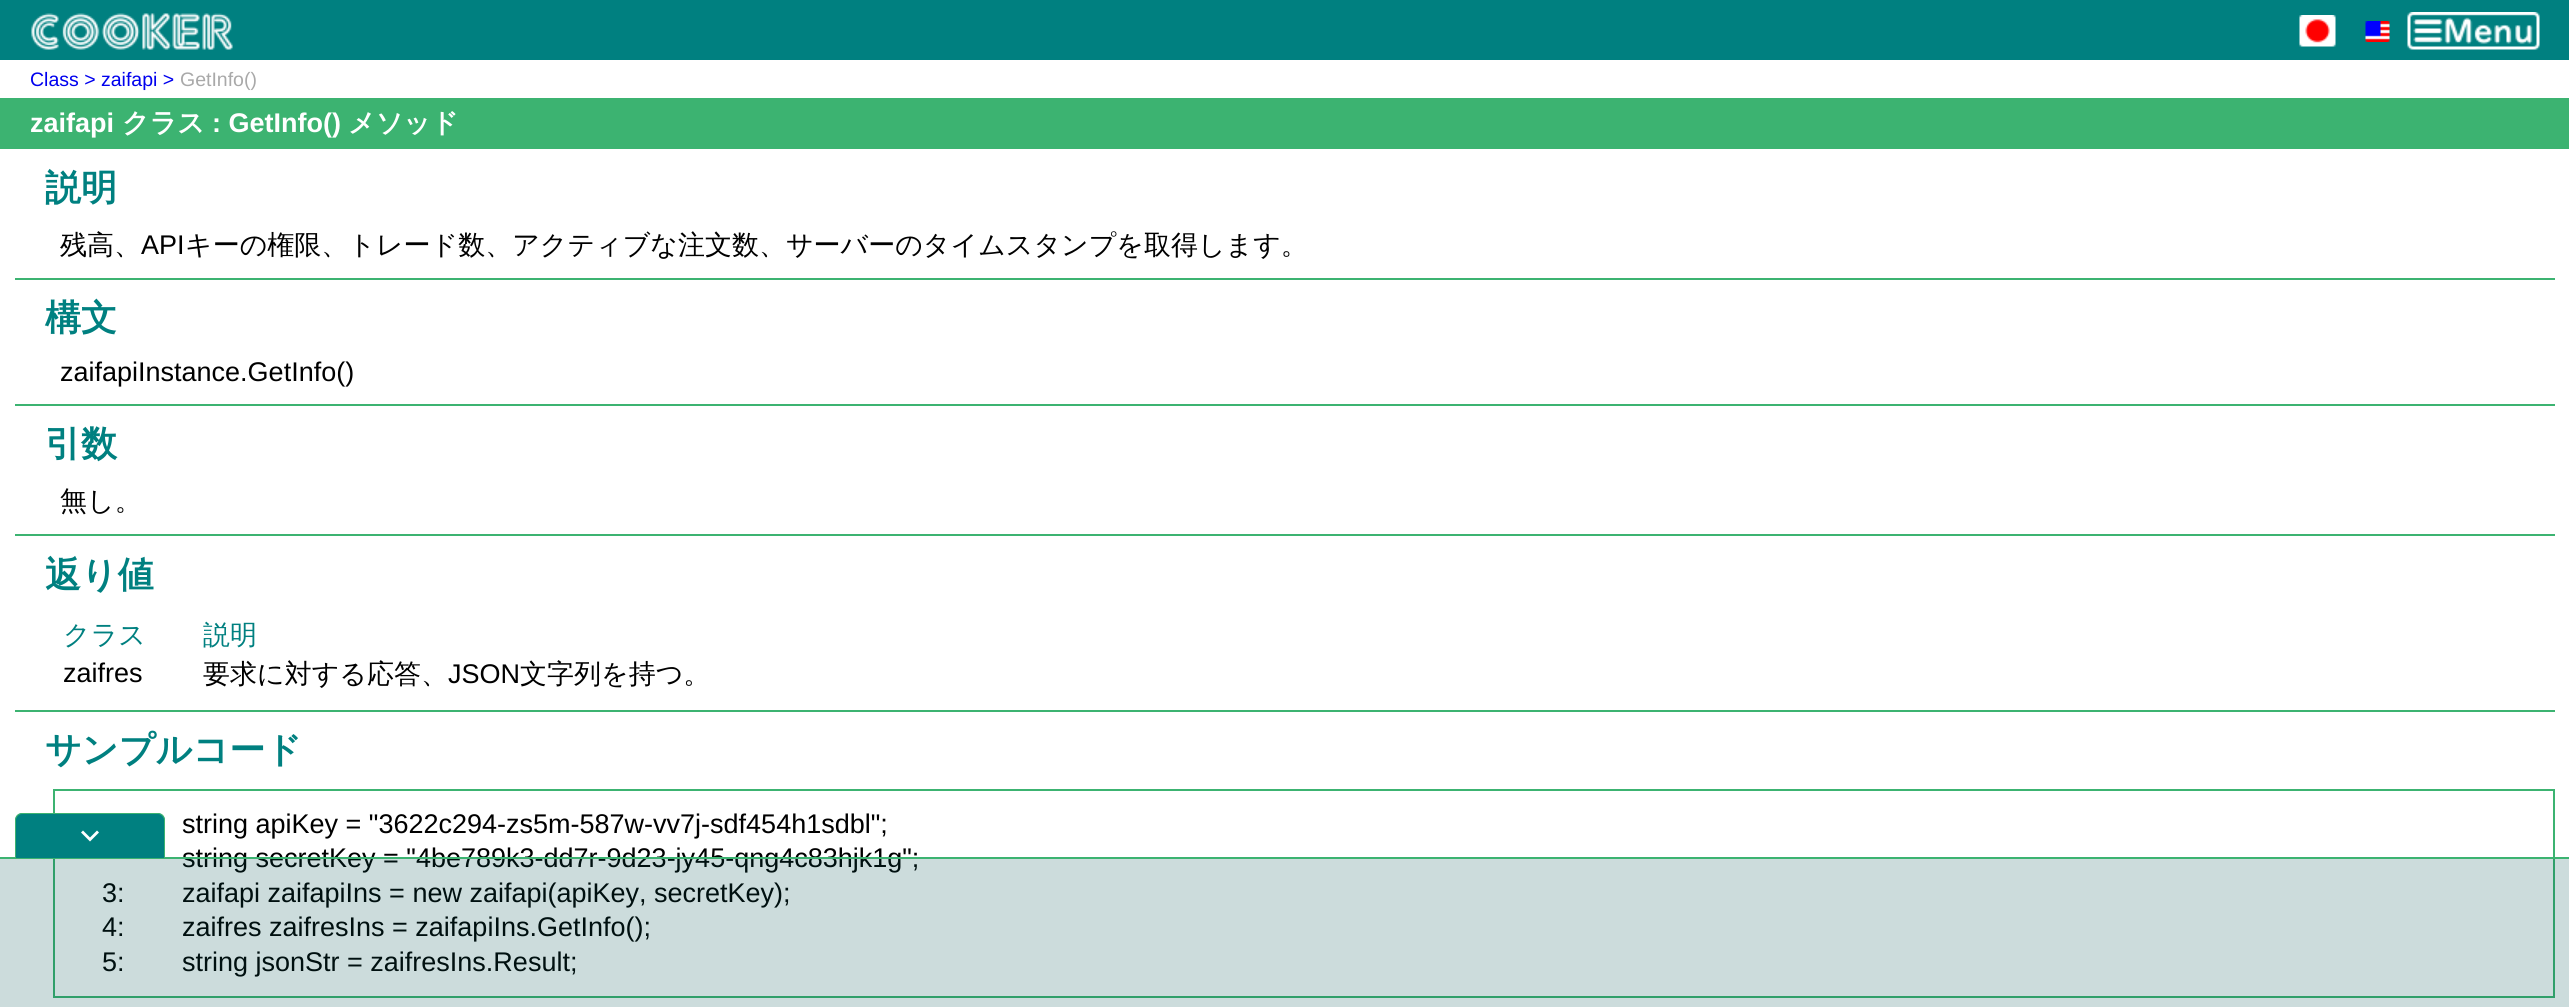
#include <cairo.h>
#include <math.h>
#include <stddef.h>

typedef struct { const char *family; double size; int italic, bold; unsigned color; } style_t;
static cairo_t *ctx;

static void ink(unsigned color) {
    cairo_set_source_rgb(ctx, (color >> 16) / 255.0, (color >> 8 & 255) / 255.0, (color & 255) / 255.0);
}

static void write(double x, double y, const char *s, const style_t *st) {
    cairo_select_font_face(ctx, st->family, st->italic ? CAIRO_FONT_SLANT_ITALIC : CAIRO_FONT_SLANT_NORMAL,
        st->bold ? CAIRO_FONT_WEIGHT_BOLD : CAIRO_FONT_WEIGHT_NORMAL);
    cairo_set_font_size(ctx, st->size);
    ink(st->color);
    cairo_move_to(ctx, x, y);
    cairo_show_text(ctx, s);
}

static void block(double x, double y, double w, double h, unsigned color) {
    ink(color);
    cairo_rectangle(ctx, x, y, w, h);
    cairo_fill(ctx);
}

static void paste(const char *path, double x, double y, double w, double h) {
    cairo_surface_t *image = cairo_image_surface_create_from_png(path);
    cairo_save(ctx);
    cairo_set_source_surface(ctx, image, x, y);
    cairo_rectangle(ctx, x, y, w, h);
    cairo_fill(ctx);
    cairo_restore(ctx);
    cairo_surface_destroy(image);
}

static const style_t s1 = {"Liberation Sans", 19.5, 0, 0, 0x0000ee};
static const style_t s2 = {"Liberation Sans", 19.5, 0, 0, 0xa9a9a9};
static const style_t s3 = {"Liberation Sans", 27, 0, 1, 0xffffff};
static const style_t s4 = {"WenQuanYi Zen Hei", 27, 0, 1, 0xffffff};
static const style_t s5 = {"WenQuanYi Zen Hei", 36, 0, 1, 0x008080};
static const style_t s6 = {"WenQuanYi Zen Hei Medium", 27, 0, 0, 0x000000};
static const style_t s7 = {"Liberation Sans", 27, 0, 0, 0x000000};
static const style_t s8 = {"WenQuanYi Zen Hei Medium", 27, 0, 0, 0x008080};

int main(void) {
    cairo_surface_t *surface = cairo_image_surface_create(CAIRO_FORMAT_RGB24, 2569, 1007);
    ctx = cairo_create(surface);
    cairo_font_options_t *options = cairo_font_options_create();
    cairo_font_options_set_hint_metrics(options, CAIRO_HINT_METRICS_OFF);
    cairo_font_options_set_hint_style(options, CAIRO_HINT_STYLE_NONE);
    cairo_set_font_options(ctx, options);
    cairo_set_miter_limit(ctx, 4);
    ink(0xffffff);
    cairo_paint(ctx);
    block(0, 0, 2569, 60, 0x008080);
    paste("pic1.png", 31, 13, 202, 37);
    paste("pic2.png", 2299, 15, 37, 32);
    paste("pic3.png", 2365, 21, 25, 21);
    paste("pic4.png", 2407, 12, 133, 38);
    write(30, 86, "Class > zaifapi >", &s1);
    write(180, 86, "GetInfo()", &s2);
    block(0, 98, 2569, 51, 0x3cb371);
    write(30, 132, "zaifapi", &s3);
    write(122, 132, "クラス", &s4);
    write(212, 132, ": GetInfo()", &s3);
    write(348, 132, "メソッド", &s4);
    write(45, 200, "説明", &s5);
    write(60, 254, "残高、", &s6);
    write(141, 254, "API", &s7);
    write(185, 254, "キーの権限、トレード数、アクティブな注文数、サーバーのタイムスタンプを取得します。", &s6);
    block(15, 278, 2540, 2, 0x3cb371);
    write(45, 330, "構文", &s5);
    write(60, 381, "zaifapiInstance.GetInfo()", &s7);
    block(15, 404, 2540, 2, 0x3cb371);
    write(45, 456, "引数", &s5);
    write(60, 510, "無し。", &s6);
    block(15, 534, 2540, 2, 0x3cb371);
    write(45, 587, "返り値", &s5);
    write(63, 644, "クラス", &s8);
    write(203, 644, "説明", &s8);
    write(63, 682, "zaifres", &s7);
    write(203, 683, "要求に対する応答、", &s6);
    write(448, 683, "JSON", &s7);
    write(520, 683, "文字列を持つ。", &s6);
    block(15, 710, 2540, 2, 0x3cb371);
    write(45, 762, "サンプルコード", &s5);
    cairo_rectangle(ctx, 54, 790, 2500, 207);
    ink(0x3cb371);
    cairo_stroke(ctx);
    write(182, 833, "string apiKey = \"3622c294-zs5m-587w-vv7j-sdf454h1sdbl\";", &s7);
    write(182, 867, "string secretKey = \"4be789k3-dd7r-9d23-jy45-qng4c83hjk1g\";", &s7);
    write(102, 902, "3:", &s7);
    write(182, 902, "zaifapi zaifapiIns = new zaifapi(apiKey, secretKey);", &s7);
    write(102, 936, "4:", &s7);
    write(182, 936, "zaifres zaifresIns = zaifapiIns.GetInfo();", &s7);
    write(102, 971, "5:", &s7);
    write(182, 971, "string jsonStr = zaifresIns.Result;", &s7);
    block(0, 857, 2569, 2, 0x3cb371);
    ink(0x008080);
    cairo_new_path(ctx);
    cairo_move_to(ctx, 23, 813);
    cairo_line_to(ctx, 157, 813);
    cairo_curve_to(ctx, 161.5, 813, 165, 816.5, 165, 821);
    cairo_line_to(ctx, 165, 858);
    cairo_line_to(ctx, 15, 858);
    cairo_line_to(ctx, 15, 821);
    cairo_curve_to(ctx, 15, 816.5, 18.5, 813, 23, 813);
    cairo_close_path(ctx);
    cairo_fill(ctx);
    ink(0x3cb371);
    cairo_set_fill_rule(ctx, CAIRO_FILL_RULE_EVEN_ODD);
    cairo_new_path(ctx);
    cairo_move_to(ctx, 22, 813);
    cairo_line_to(ctx, 158, 813);
    cairo_curve_to(ctx, 162, 813, 165, 816, 165, 820);
    cairo_line_to(ctx, 165, 858);
    cairo_line_to(ctx, 15, 858);
    cairo_line_to(ctx, 15, 820);
    cairo_curve_to(ctx, 15, 816, 18, 813, 22, 813);
    cairo_close_path(ctx);
    cairo_move_to(ctx, 22, 814);
    cairo_line_to(ctx, 158, 814);
    cairo_curve_to(ctx, 161, 814, 164, 817, 164, 820);
    cairo_line_to(ctx, 164, 858);
    cairo_line_to(ctx, 16, 858);
    cairo_line_to(ctx, 16, 820);
    cairo_curve_to(ctx, 16, 817, 19, 814, 22, 814);
    cairo_close_path(ctx);
    cairo_fill(ctx);
    ink(0xffffff);
    cairo_set_fill_rule(ctx, CAIRO_FILL_RULE_WINDING);
    cairo_new_path(ctx);
    cairo_move_to(ctx, 97, 830.5);
    cairo_line_to(ctx, 90, 837.5);
    cairo_line_to(ctx, 83, 830.5);
    cairo_line_to(ctx, 81, 832.5);
    cairo_line_to(ctx, 90, 841.5);
    cairo_line_to(ctx, 99, 832.5);
    cairo_close_path(ctx);
    cairo_fill(ctx);
    cairo_set_source_rgba(ctx, 0, 0.314, 0.314, 0.2);
    cairo_rectangle(ctx, 0, 859, 2569, 148);
    cairo_fill(ctx);
    cairo_surface_write_to_png(surface, "screenshot.png");
    cairo_font_options_destroy(options);
    cairo_destroy(ctx);
    cairo_surface_destroy(surface);
    return 0;
}
